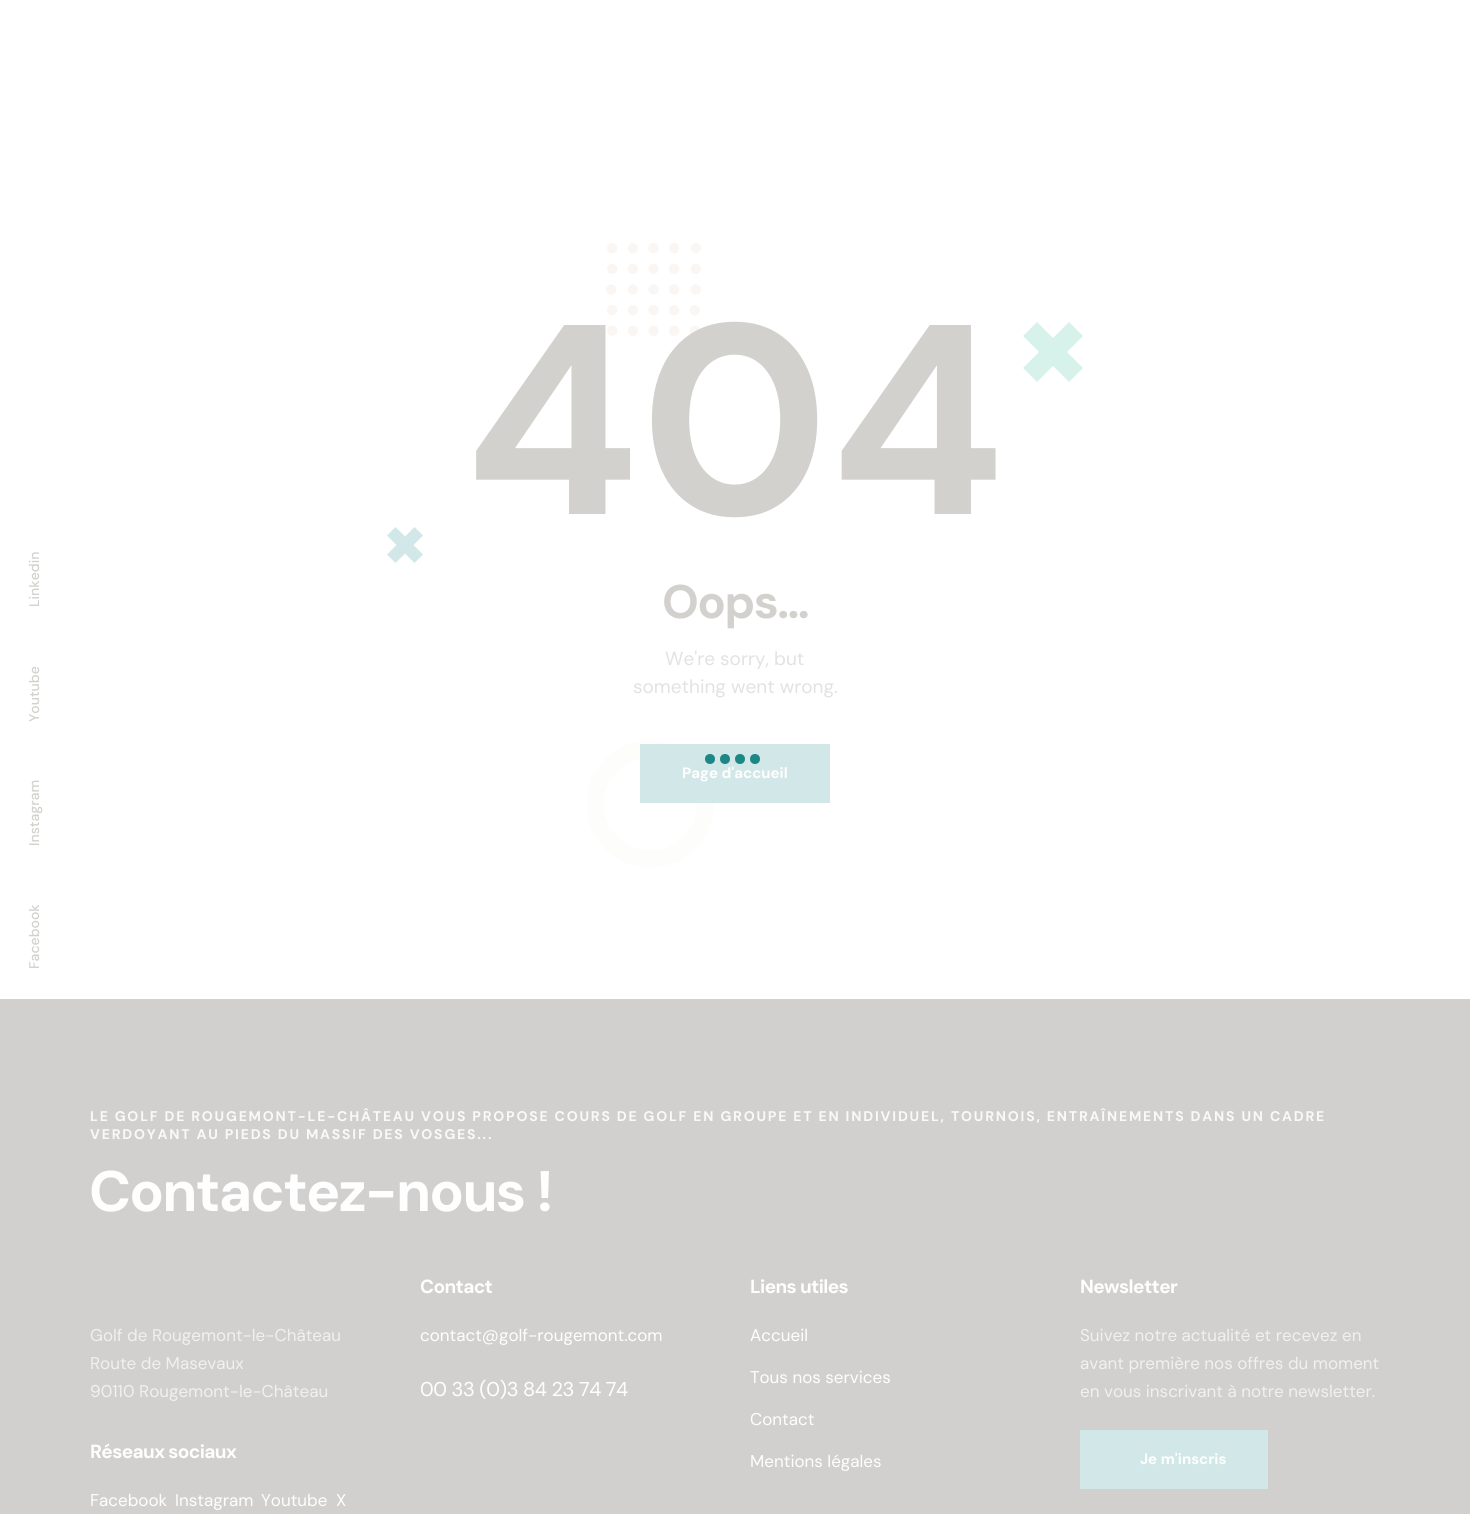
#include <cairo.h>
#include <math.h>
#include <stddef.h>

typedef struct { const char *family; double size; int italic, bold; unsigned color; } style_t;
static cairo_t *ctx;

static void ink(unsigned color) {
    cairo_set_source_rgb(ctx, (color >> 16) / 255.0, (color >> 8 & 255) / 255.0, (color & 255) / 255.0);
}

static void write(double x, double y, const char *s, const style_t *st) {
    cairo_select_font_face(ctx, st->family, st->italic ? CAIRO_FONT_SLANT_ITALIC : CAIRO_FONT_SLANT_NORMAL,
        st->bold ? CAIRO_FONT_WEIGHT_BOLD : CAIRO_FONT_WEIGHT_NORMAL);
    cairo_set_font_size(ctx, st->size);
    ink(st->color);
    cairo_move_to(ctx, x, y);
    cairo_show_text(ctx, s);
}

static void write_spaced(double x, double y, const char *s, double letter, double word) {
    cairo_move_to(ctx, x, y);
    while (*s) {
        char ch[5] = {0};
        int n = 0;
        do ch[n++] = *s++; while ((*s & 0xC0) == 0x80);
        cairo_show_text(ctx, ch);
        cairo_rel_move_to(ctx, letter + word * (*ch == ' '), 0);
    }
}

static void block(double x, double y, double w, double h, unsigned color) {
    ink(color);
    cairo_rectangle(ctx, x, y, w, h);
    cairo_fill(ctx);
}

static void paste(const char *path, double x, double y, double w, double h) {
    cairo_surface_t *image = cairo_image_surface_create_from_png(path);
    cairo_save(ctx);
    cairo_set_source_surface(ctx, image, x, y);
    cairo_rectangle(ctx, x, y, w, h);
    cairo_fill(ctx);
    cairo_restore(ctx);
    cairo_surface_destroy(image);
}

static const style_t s1 = {"DM Sans Medium", 14, 0, 0, 0xd2d1ce};
static const style_t s2 = {"DM Sans", 270, 0, 1, 0xd2d1ce};
static const style_t s3 = {"DM Sans", 19, 0, 0, 0xe2e2e1};
static const style_t s4 = {"DM Sans", 15, 0, 1, 0xfefefe};
static const style_t s5 = {"DM Sans", 17, 0, 0, 0xf2f0ef};
static const style_t s6 = {"DM Sans", 17, 0, 0, 0xfefefe};

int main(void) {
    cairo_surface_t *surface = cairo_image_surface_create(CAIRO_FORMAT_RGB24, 1470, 1514);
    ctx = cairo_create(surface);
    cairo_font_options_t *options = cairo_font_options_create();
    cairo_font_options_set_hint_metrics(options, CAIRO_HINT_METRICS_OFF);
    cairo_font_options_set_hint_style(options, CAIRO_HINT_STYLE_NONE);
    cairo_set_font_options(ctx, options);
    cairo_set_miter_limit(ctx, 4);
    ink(0xffffff);
    cairo_paint(ctx);
    cairo_save(ctx);
    cairo_translate(ctx, 39, 607);
    cairo_rotate(ctx, -90 * M_PI / 180);
    write(0, 0, "Linkedin", &s1);
    cairo_restore(ctx);
    cairo_save(ctx);
    cairo_translate(ctx, 39, 722);
    cairo_rotate(ctx, -90 * M_PI / 180);
    write(0, 0, "Youtube", &s1);
    cairo_restore(ctx);
    cairo_save(ctx);
    cairo_translate(ctx, 39, 846);
    cairo_rotate(ctx, -90 * M_PI / 180);
    write(0, 0, "Instagram", &s1);
    cairo_restore(ctx);
    cairo_save(ctx);
    cairo_translate(ctx, 39, 969);
    cairo_rotate(ctx, -90 * M_PI / 180);
    write(0, 0, "Facebook", &s1);
    cairo_restore(ctx);
    paste("pic1.png", 606, 243, 95, 93);
    ink(0xd7f2eb);
    cairo_new_path(ctx);
    cairo_move_to(ctx, 1023, 368);
    cairo_line_to(ctx, 1039, 352);
    cairo_line_to(ctx, 1023, 336);
    cairo_line_to(ctx, 1037, 322);
    cairo_line_to(ctx, 1053, 338);
    cairo_line_to(ctx, 1069, 322);
    cairo_line_to(ctx, 1083, 336);
    cairo_line_to(ctx, 1067, 352);
    cairo_line_to(ctx, 1083, 368);
    cairo_line_to(ctx, 1069, 382);
    cairo_line_to(ctx, 1053, 366);
    cairo_line_to(ctx, 1037, 382);
    cairo_close_path(ctx);
    cairo_fill(ctx);
    ink(0xd2e7e7);
    cairo_new_path(ctx);
    cairo_move_to(ctx, 387, 554.5);
    cairo_line_to(ctx, 396.5, 545);
    cairo_line_to(ctx, 387, 535.5);
    cairo_line_to(ctx, 395.5, 527);
    cairo_line_to(ctx, 405, 536.5);
    cairo_line_to(ctx, 414.5, 527);
    cairo_line_to(ctx, 423, 535.5);
    cairo_line_to(ctx, 413.5, 545);
    cairo_line_to(ctx, 423, 554.5);
    cairo_line_to(ctx, 414.5, 563);
    cairo_line_to(ctx, 405, 553.5);
    cairo_line_to(ctx, 395.5, 563);
    cairo_close_path(ctx);
    cairo_fill(ctx);
    cairo_arc(ctx, 650, 804, 55, 0, 2 * M_PI);
    ink(0xfdfdfc);
    cairo_set_line_width(ctx, 17.3);
    cairo_stroke(ctx);
    write(464, 514, "404", &s2);
    cairo_set_font_size(ctx, 47);
    write_spaced(662, 618, "Oops...", -1.5, 0);
    write(665, 665, "We're sorry, but", &s3);
    write(633, 693, "something went wrong.", &s3);
    block(640, 744, 190, 59, 0xd2e7e7);
    write(682, 778, "Page d'accueil", &s4);
    block(0, 999, 1470, 515, 0xd1d0cf);
    cairo_set_font_size(ctx, 14);
    ink(0xf9f9f8);
    write_spaced(90, 1121, "LE GOLF DE ROUGEMONT-LE-CHÂTEAU VOUS PROPOSE COURS DE GOLF EN GROUPE ET EN INDIVIDUEL, TOURNOIS, ENTRAÎNEMENTS DANS UN CADRE", 1.8, 0);
    write_spaced(90, 1139, "VERDOYANT AU PIEDS DU MASSIF DES VOSGES...", 1.8, 0);
    cairo_set_font_size(ctx, 57);
    ink(0xfefefe);
    write_spaced(89, 1211, "Contactez-nous !", -1.75, 0);
    write(90, 1341, "Golf de Rougemont-le-Château", &s5);
    write(90, 1369, "Route de Masevaux", &s5);
    write(90, 1397, "90110 Rougemont-le-Château", &s5);
    cairo_select_font_face(ctx, "DM Sans", CAIRO_FONT_SLANT_NORMAL, CAIRO_FONT_WEIGHT_BOLD);
    cairo_set_font_size(ctx, 19);
    ink(0xfefefe);
    write_spaced(90, 1458, "Réseaux sociaux", -0.6, 0);
    write(90, 1506, "Facebook", &s6);
    write(175, 1506, "Instagram", &s6);
    write(261, 1506, "Youtube", &s6);
    write(336, 1506, "X", &s6);
    cairo_select_font_face(ctx, "DM Sans", CAIRO_FONT_SLANT_NORMAL, CAIRO_FONT_WEIGHT_BOLD);
    cairo_set_font_size(ctx, 19);
    write_spaced(420, 1293, "Contact", -0.6, 0);
    write(420, 1341, "contact@golf-rougemont.com", &s6);
    cairo_set_font_size(ctx, 20);
    write_spaced(420, 1396, "00 33 (0)3 84 23 74 74", -0.4, 0);
    cairo_select_font_face(ctx, "DM Sans", CAIRO_FONT_SLANT_NORMAL, CAIRO_FONT_WEIGHT_BOLD);
    cairo_set_font_size(ctx, 19);
    write_spaced(750, 1293, "Liens utiles", -0.6, 0);
    write(750, 1341, "Accueil", &s6);
    write(750, 1383, "Tous nos services", &s6);
    write(750, 1425, "Contact", &s6);
    write(750, 1467, "Mentions légales", &s6);
    cairo_select_font_face(ctx, "DM Sans", CAIRO_FONT_SLANT_NORMAL, CAIRO_FONT_WEIGHT_BOLD);
    cairo_set_font_size(ctx, 19);
    write_spaced(1080, 1293, "Newsletter", -0.6, 0);
    write(1080, 1341, "Suivez notre actualité et recevez en", &s5);
    write(1080, 1369, "avant première nos offres du moment", &s5);
    write(1080, 1397, "en vous inscrivant à notre newsletter.", &s5);
    block(1080, 1430, 188, 59, 0xd2e7e7);
    write(1140, 1464, "Je m'inscris", &s4);
    ink(0x1d8786);
    cairo_new_path(ctx);
    cairo_arc(ctx, 710, 759, 5, 0, 2 * M_PI);
    cairo_fill(ctx);
    cairo_arc(ctx, 725, 759, 5, 0, 2 * M_PI);
    cairo_fill(ctx);
    cairo_arc(ctx, 740, 759, 5, 0, 2 * M_PI);
    cairo_fill(ctx);
    cairo_arc(ctx, 755, 759, 5, 0, 2 * M_PI);
    cairo_fill(ctx);
    cairo_surface_write_to_png(surface, "screenshot.png");
    cairo_font_options_destroy(options);
    cairo_destroy(ctx);
    cairo_surface_destroy(surface);
    return 0;
}
